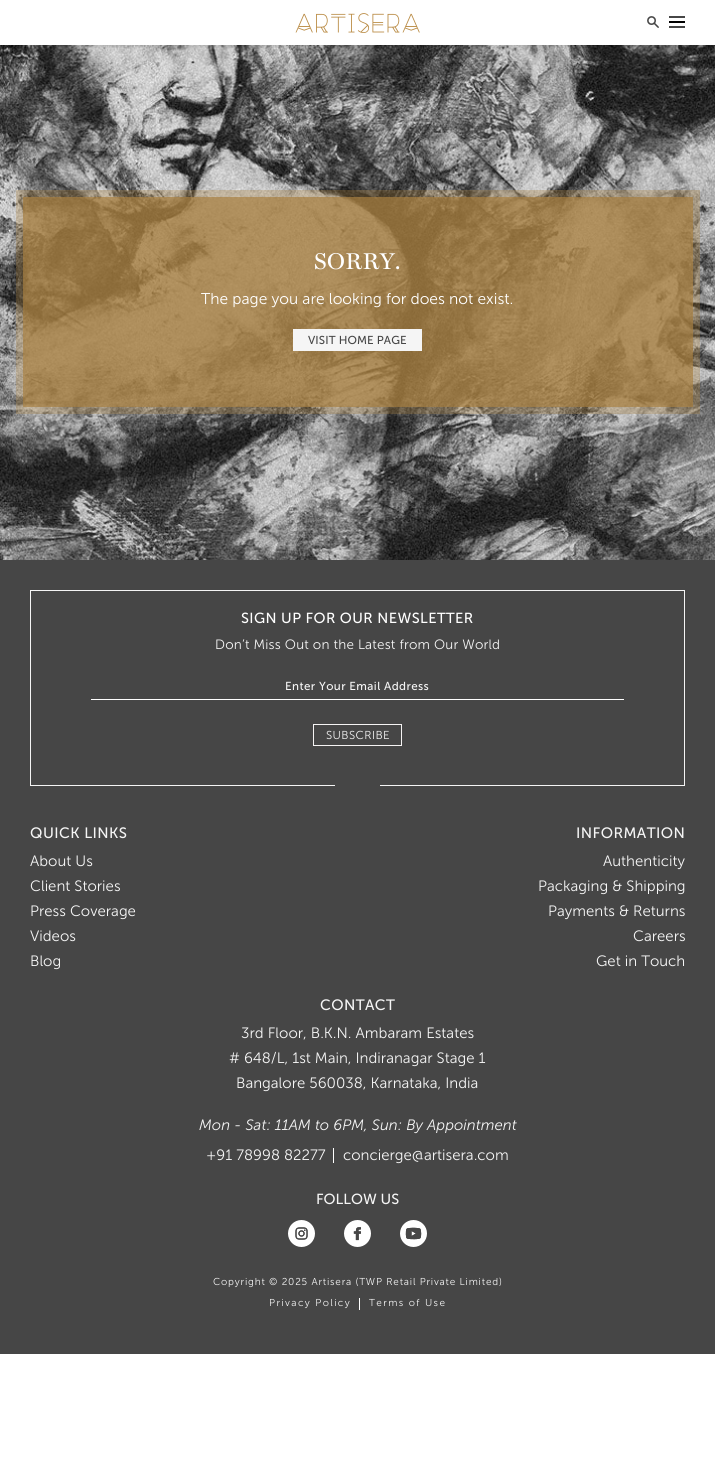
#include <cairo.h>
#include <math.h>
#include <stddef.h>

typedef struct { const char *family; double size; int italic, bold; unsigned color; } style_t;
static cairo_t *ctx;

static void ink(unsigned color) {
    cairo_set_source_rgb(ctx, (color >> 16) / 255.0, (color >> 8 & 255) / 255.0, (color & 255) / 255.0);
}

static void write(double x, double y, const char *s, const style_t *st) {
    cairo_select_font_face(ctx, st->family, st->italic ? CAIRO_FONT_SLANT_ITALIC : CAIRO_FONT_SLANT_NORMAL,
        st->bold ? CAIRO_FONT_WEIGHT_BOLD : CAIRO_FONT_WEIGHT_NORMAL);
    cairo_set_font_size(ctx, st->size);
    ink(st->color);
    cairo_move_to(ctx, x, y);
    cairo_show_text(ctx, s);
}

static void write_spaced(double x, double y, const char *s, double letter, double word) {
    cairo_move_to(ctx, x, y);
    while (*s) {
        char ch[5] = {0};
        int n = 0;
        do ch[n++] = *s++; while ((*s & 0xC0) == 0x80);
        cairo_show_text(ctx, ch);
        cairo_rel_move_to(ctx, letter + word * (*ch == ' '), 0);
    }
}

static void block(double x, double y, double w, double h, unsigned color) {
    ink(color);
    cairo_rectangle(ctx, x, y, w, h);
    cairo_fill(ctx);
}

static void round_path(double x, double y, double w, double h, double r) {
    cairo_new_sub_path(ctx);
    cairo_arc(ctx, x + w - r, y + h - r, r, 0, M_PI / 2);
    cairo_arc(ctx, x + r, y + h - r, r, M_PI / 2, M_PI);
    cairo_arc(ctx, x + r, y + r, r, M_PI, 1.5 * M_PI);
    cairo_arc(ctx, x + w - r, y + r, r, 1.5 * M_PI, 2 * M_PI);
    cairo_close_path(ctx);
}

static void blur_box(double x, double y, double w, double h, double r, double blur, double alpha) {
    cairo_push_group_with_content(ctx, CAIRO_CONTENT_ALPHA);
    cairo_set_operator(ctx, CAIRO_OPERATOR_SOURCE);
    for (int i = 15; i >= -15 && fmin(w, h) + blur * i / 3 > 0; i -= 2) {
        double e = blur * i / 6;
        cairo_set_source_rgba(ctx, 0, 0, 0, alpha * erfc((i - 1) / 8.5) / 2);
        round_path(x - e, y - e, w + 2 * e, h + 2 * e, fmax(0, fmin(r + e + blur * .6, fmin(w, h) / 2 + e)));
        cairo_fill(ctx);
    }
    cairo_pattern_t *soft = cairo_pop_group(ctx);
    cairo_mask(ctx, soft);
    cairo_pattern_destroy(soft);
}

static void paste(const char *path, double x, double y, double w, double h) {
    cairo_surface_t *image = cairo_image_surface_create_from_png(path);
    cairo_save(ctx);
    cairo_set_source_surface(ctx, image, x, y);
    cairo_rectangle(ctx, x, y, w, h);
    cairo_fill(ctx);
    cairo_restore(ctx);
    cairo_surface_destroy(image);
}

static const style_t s1 = {"Museo Sans Light", 15.6, 0, 0, 0xffffff};
static const style_t s2 = {"Museo Sans Light", 15, 0, 0, 0xf5f5f5};
static const style_t s3 = {"Museo Sans Light", 15, 1, 0, 0xf5f5f5};
static const style_t s4 = {"Museo Sans", 14.6, 0, 0, 0xf5f5f5};

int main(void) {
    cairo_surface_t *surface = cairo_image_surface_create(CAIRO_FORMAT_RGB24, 715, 1470);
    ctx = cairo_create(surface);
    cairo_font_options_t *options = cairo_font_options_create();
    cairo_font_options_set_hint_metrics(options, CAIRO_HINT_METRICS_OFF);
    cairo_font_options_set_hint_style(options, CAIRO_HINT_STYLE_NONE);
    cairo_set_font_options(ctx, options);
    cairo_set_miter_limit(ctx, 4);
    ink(0xffffff);
    cairo_paint(ctx);
    paste("pic3.png", 0, 45, 715, 515);
    cairo_save(ctx);
    cairo_rectangle(ctx, 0, 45, 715, 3);
    cairo_clip(ctx);
    ink(0x000000);
    blur_box(0, 0, 715, 45, 0, 2.5, 0.2);
    cairo_restore(ctx);
    paste("pic1.png", 295, 13, 125, 20);
    paste("pic2.png", 647, 16, 12, 12);
    block(669, 21, 16, 2, 0x000000);
    block(669, 16, 16, 2, 0x464646);
    block(669, 26, 16, 2, 0x464646);
    cairo_set_source_rgba(ctx, 0.659, 0.502, 0.255, 0.79);
    cairo_rectangle(ctx, 23, 197, 670, 210);
    cairo_fill(ctx);
    block(293, 329, 129, 22, 0xf5f5f5);
    cairo_rectangle(ctx, 19.5, 193.5, 677, 217);
    cairo_set_source_rgba(ctx, 0.659, 0.502, 0.255, 0.33);
    cairo_set_line_width(ctx, 7);
    cairo_stroke(ctx);
    cairo_select_font_face(ctx, "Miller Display", CAIRO_FONT_SLANT_NORMAL, CAIRO_FONT_WEIGHT_NORMAL);
    cairo_set_font_size(ctx, 23);
    ink(0xffffff);
    write_spaced(314, 269, "SORRY.", 0.4, 0);
    write(201, 304, "The page you are looking for does not exist.", &s1);
    cairo_select_font_face(ctx, "Museo Sans", CAIRO_FONT_SLANT_NORMAL, CAIRO_FONT_WEIGHT_NORMAL);
    cairo_set_font_size(ctx, 11.5);
    ink(0x464646);
    write_spaced(308, 344, "VISIT HOME PAGE", 0.1, 0);
    block(0, 560, 715, 794, 0x464646);
    cairo_rectangle(ctx, 30.5, 590.5, 654, 195);
    ink(0xf5f5f5);
    cairo_set_line_width(ctx, 1);
    cairo_stroke(ctx);
    cairo_set_font_size(ctx, 14.6);
    ink(0xffffff);
    write_spaced(241, 623, "SIGN UP FOR OUR NEWSLETTER", 0.4, 0);
    cairo_select_font_face(ctx, "Museo Sans Light", CAIRO_FONT_SLANT_NORMAL, CAIRO_FONT_WEIGHT_NORMAL);
    cairo_set_font_size(ctx, 13.5);
    ink(0xf5f5f5);
    write_spaced(215, 649, "Don’t Miss Out on the Latest from Our World", 0.2, 0);
    block(91, 699, 533, 1, 0xffffff);
    cairo_select_font_face(ctx, "Museo Sans", CAIRO_FONT_SLANT_NORMAL, CAIRO_FONT_WEIGHT_NORMAL);
    cairo_set_font_size(ctx, 11.6);
    ink(0xf5f5f5);
    write_spaced(285, 690, "Enter Your Email Address", 0.4, 0);
    cairo_rectangle(ctx, 313.5, 724.5, 88, 21);
    ink(0xf6f4f4);
    cairo_stroke(ctx);
    cairo_select_font_face(ctx, "Museo Sans Light", CAIRO_FONT_SLANT_NORMAL, CAIRO_FONT_WEIGHT_NORMAL);
    cairo_set_font_size(ctx, 11.5);
    ink(0xf5f5f5);
    write_spaced(326, 739, "SUBSCRIBE", 0.4, 0);
    block(335, 785, 45, 1, 0x464646);
    cairo_select_font_face(ctx, "Museo Sans", CAIRO_FONT_SLANT_NORMAL, CAIRO_FONT_WEIGHT_NORMAL);
    cairo_set_font_size(ctx, 15);
    ink(0xf5f5f5);
    write_spaced(30, 838, "QUICK LINKS", 0.4, 0);
    write(30, 866, "About Us", &s2);
    write(30, 891, "Client Stories", &s2);
    write(30, 916, "Press Coverage", &s2);
    write(30, 941, "Videos", &s2);
    write(30, 966, "Blog", &s2);
    cairo_select_font_face(ctx, "Museo Sans", CAIRO_FONT_SLANT_NORMAL, CAIRO_FONT_WEIGHT_NORMAL);
    write_spaced(576, 838, "INFORMATION", 0.4, 0);
    write(603, 866, "Authenticity", &s2);
    write(538, 891, "Packaging & Shipping", &s2);
    write(548, 916, "Payments & Returns", &s2);
    write(633, 941, "Careers", &s2);
    write(596, 966, "Get in Touch", &s2);
    cairo_select_font_face(ctx, "Museo Sans", CAIRO_FONT_SLANT_NORMAL, CAIRO_FONT_WEIGHT_NORMAL);
    write_spaced(320, 1010, "CONTACT", 0.4, 0);
    write(241, 1038, "3rd Floor, B.K.N. Ambaram Estates", &s2);
    write(229, 1063, "# 648/L, 1st Main, Indiranagar Stage 1", &s2);
    write(236, 1088, "Bangalore 560038, Karnataka, India", &s2);
    write(199, 1130, "Mon - Sat: 11AM to 6PM, Sun: By Appointment", &s3);
    write(206, 1160, "+91 78998 82277", &s2);
    block(333, 1148, 1, 15, 0xffffff);
    write(343, 1160, "concierge@artisera.com", &s2);
    write(316, 1204, "FOLLOW US", &s4);
    paste("pic4.png", 288, 1220, 27, 27);
    paste("pic5.png", 344, 1220, 27, 27);
    paste("pic6.png", 400, 1220, 27, 27);
    cairo_select_font_face(ctx, "Museo Sans Light", CAIRO_FONT_SLANT_NORMAL, CAIRO_FONT_WEIGHT_NORMAL);
    cairo_set_font_size(ctx, 10);
    write_spaced(213, 1285, "Copyright © 2025 Artisera (TWP Retail Private Limited)", 0.8, 0);
    write_spaced(269, 1306, "Privacy Policy", 1.4, 0);
    block(359, 1298, 1, 12, 0xffffff);
    ink(0xf5f5f5);
    write_spaced(369, 1306, "Terms of Use", 1.4, 0);
    cairo_surface_write_to_png(surface, "screenshot.png");
    cairo_font_options_destroy(options);
    cairo_destroy(ctx);
    cairo_surface_destroy(surface);
    return 0;
}
